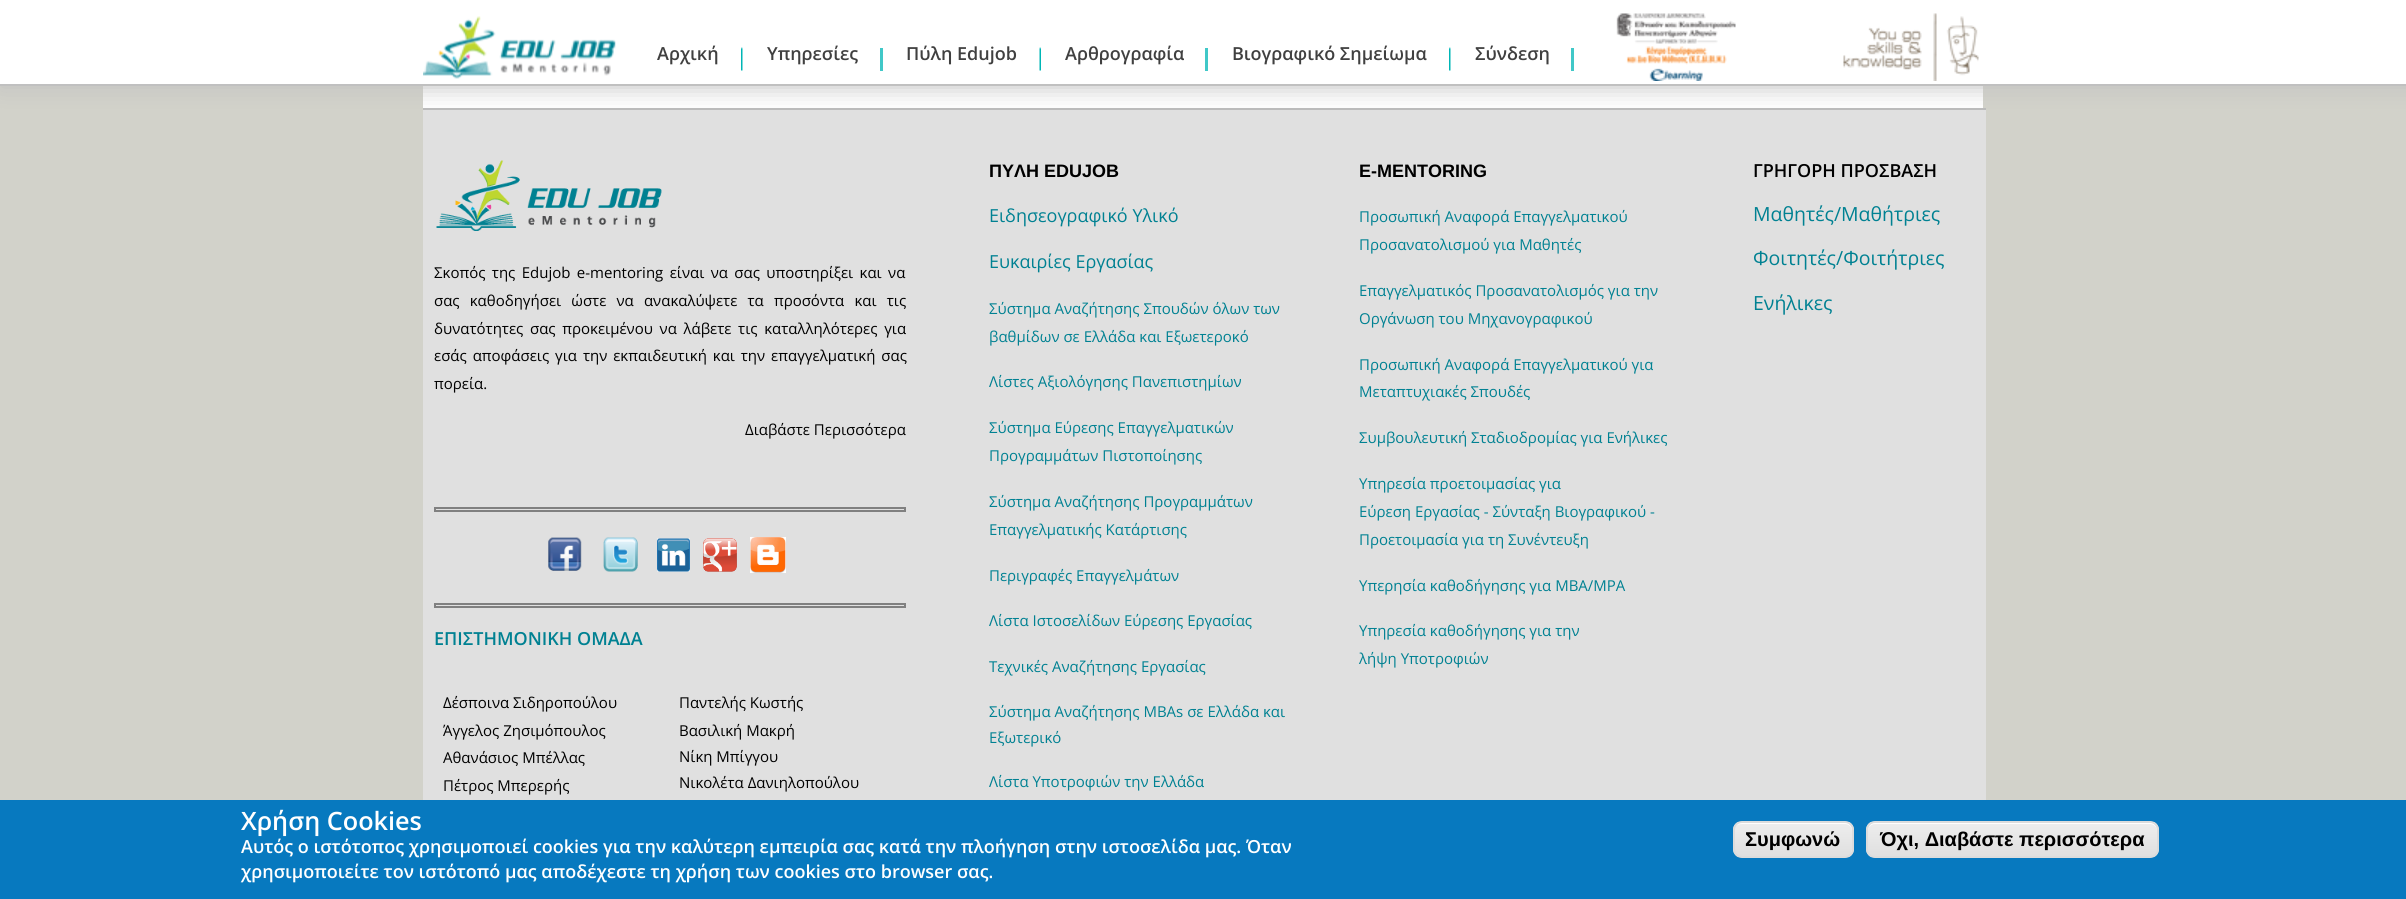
#include <cairo.h>
#include <math.h>
#include <stddef.h>

typedef struct { const char *family; double size; int italic, bold; unsigned color; } style_t;
static cairo_t *ctx;

static void ink(unsigned color) {
    cairo_set_source_rgb(ctx, (color >> 16) / 255.0, (color >> 8 & 255) / 255.0, (color & 255) / 255.0);
}

static void write(double x, double y, const char *s, const style_t *st) {
    cairo_select_font_face(ctx, st->family, st->italic ? CAIRO_FONT_SLANT_ITALIC : CAIRO_FONT_SLANT_NORMAL,
        st->bold ? CAIRO_FONT_WEIGHT_BOLD : CAIRO_FONT_WEIGHT_NORMAL);
    cairo_set_font_size(ctx, st->size);
    ink(st->color);
    cairo_move_to(ctx, x, y);
    cairo_show_text(ctx, s);
}

static void write_spaced(double x, double y, const char *s, double letter, double word) {
    cairo_move_to(ctx, x, y);
    while (*s) {
        char ch[5] = {0};
        int n = 0;
        do ch[n++] = *s++; while ((*s & 0xC0) == 0x80);
        cairo_show_text(ctx, ch);
        cairo_rel_move_to(ctx, letter + word * (*ch == ' '), 0);
    }
}

static void block(double x, double y, double w, double h, unsigned color) {
    ink(color);
    cairo_rectangle(ctx, x, y, w, h);
    cairo_fill(ctx);
}

static void round_path(double x, double y, double w, double h, double r) {
    cairo_new_sub_path(ctx);
    cairo_arc(ctx, x + w - r, y + h - r, r, 0, M_PI / 2);
    cairo_arc(ctx, x + r, y + h - r, r, M_PI / 2, M_PI);
    cairo_arc(ctx, x + r, y + r, r, M_PI, 1.5 * M_PI);
    cairo_arc(ctx, x + w - r, y + r, r, 1.5 * M_PI, 2 * M_PI);
    cairo_close_path(ctx);
}

static void blur_box(double x, double y, double w, double h, double r, double blur, double alpha) {
    cairo_push_group_with_content(ctx, CAIRO_CONTENT_ALPHA);
    cairo_set_operator(ctx, CAIRO_OPERATOR_SOURCE);
    for (int i = 15; i >= -15 && fmin(w, h) + blur * i / 3 > 0; i -= 2) {
        double e = blur * i / 6;
        cairo_set_source_rgba(ctx, 0, 0, 0, alpha * erfc((i - 1) / 8.5) / 2);
        round_path(x - e, y - e, w + 2 * e, h + 2 * e, fmax(0, fmin(r + e + blur * .6, fmin(w, h) / 2 + e)));
        cairo_fill(ctx);
    }
    cairo_pattern_t *soft = cairo_pop_group(ctx);
    cairo_mask(ctx, soft);
    cairo_pattern_destroy(soft);
}

static void paste(const char *path, double x, double y, double w, double h) {
    cairo_surface_t *image = cairo_image_surface_create_from_png(path);
    cairo_save(ctx);
    cairo_set_source_surface(ctx, image, x, y);
    cairo_rectangle(ctx, x, y, w, h);
    cairo_fill(ctx);
    cairo_restore(ctx);
    cairo_surface_destroy(image);
}

static const style_t s1 = {"Open Sans SemiBold", 18, 0, 0, 0x404040};
static const style_t s2 = {"Open Sans", 15, 0, 0, 0x000000};
static const style_t s3 = {"Open Sans SemiBold", 18, 0, 0, 0x008192};
static const style_t s4 = {"Liberation Sans", 18, 0, 1, 0x000000};
static const style_t s5 = {"Open Sans", 18, 0, 0, 0x008192};
static const style_t s6 = {"Open Sans", 15, 0, 0, 0x008192};
static const style_t s7 = {"Open Sans SemiBold", 18, 0, 0, 0x000000};
static const style_t s8 = {"Open Sans", 19.5, 0, 0, 0x008192};
static const style_t s9 = {"Open Sans SemiBold", 25.25, 0, 0, 0xffffff};
static const style_t s10 = {"Open Sans SemiBold", 18, 0, 0, 0xffffff};
static const style_t s11 = {"Liberation Sans", 20, 0, 1, 0x000000};

int main(void) {
    cairo_surface_t *surface = cairo_image_surface_create(CAIRO_FORMAT_RGB24, 2406, 899);
    ctx = cairo_create(surface);
    cairo_font_options_t *options = cairo_font_options_create();
    cairo_font_options_set_hint_metrics(options, CAIRO_HINT_METRICS_OFF);
    cairo_font_options_set_hint_style(options, CAIRO_HINT_STYLE_NONE);
    cairo_set_font_options(ctx, options);
    cairo_set_miter_limit(ctx, 4);
    cairo_pattern_t *gradient;
    ink(0xd2d2ca);
    cairo_paint(ctx);
    block(423, 86, 1560, 22, 0xffffff);
    block(423, 110, 1563, 690, 0xe0e0e0);
    block(423, 108, 1563, 2, 0xbbbbbb);
    ink(0xc0c0c0);
    blur_box(0, -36, 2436, 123, 0, 12, 1);
    block(0, 0, 2406, 84, 0xffffff);
    block(0, 84, 2406, 2, 0xc0c0c0);
    paste("pic1.png", 423, 16, 193, 63);
    paste("pic2.png", 741, 47, 2, 24);
    write(657, 60, "Αρχική", &s1);
    block(880, 48, 3, 23, 0x40c8c8);
    write(767, 60, "Υπηρεσίες", &s1);
    paste("pic3.png", 1039, 47, 2, 24);
    write(906, 60, "Πύλη Edujob", &s1);
    block(1205, 48, 3, 23, 0x40c8c8);
    write(1065, 60, "Αρθρογραφία", &s1);
    paste("pic2.png", 1449, 47, 2, 24);
    write(1232, 60, "Βιογραφικό Σημείωμα", &s1);
    block(1571, 48, 3, 23, 0x40c8c8);
    write(1475, 60, "Σύνδεση", &s1);
    paste("pic4.png", 1616, 13, 363, 68);
    paste("pic5.png", 436, 160, 226, 71);
    cairo_select_font_face(ctx, "Open Sans", CAIRO_FONT_SLANT_NORMAL, CAIRO_FONT_WEIGHT_NORMAL);
    cairo_set_font_size(ctx, 15);
    ink(0x000000);
    write_spaced(434, 278, "Σκοπός της Edujob e-mentoring είναι να σας υποστηρίξει και να", 0, 2.5);
    write_spaced(434, 306, "σας καθοδηγήσει ώστε να ανακαλύψετε τα προσόντα και τις", 0, 6.25);
    write_spaced(434, 334, "δυνατότητες σας προκειμένου να λάβετε τις καταλληλότερες για", 0, 2.75);
    write_spaced(434, 361, "εσάς αποφάσεις για την εκπαιδευτική και την επαγγελματική σας", 0, 2);
    write(434, 389, "πορεία.", &s2);
    write(745, 435, "Διαβάστε Περισσότερα", &s2);
    cairo_rectangle(ctx, 435, 508, 470, 3);
    ink(0x808080);
    cairo_stroke(ctx);
    paste("pic6.png", 548, 537, 34, 34);
    paste("pic7.png", 603, 537, 35, 35);
    paste("pic8.png", 657, 538, 33, 34);
    paste("pic9.png", 703, 538, 34, 34);
    paste("pic10.png", 750, 537, 36, 36);
    cairo_rectangle(ctx, 435, 604, 470, 3);
    cairo_stroke(ctx);
    write(434, 645, "ΕΠΙΣΤΗΜΟΝΙΚΗ ΟΜΑΔΑ", &s3);
    write(443, 708, "Δέσποινα Σιδηροπούλου", &s2);
    write(443, 736, "Άγγελος Ζησιμόπουλος", &s2);
    write(443, 763, "Αθανάσιος Μπέλλας", &s2);
    write(443, 791, "Πέτρος Μπερερής", &s2);
    write(679, 708, "Παντελής Κωστής", &s2);
    write(679, 736, "Βασιλική Μακρή", &s2);
    write(679, 762, "Νίκη Μπίγγου", &s2);
    write(679, 788, "Νικολέτα Δανιηλοπούλου", &s2);
    write(989, 177, "ΠΥΛΗ EDUJOB", &s4);
    write(989, 222, "Ειδησεογραφικό Υλικό", &s5);
    write(989, 268, "Ευκαιρίες Εργασίας", &s5);
    write(989, 314, "Σύστημα Αναζήτησης Σπουδών όλων των", &s6);
    write(989, 342, "βαθμίδων σε Ελλάδα και Εξωετεροκό", &s6);
    write(989, 387, "Λίστες Αξιολόγησης Πανεπιστημίων", &s6);
    write(989, 433, "Σύστημα Εύρεσης Επαγγελματικών", &s6);
    write(989, 461, "Προγραμμάτων Πιστοποίησης", &s6);
    write(989, 507, "Σύστημα Αναζήτησης Προγραμμάτων", &s6);
    write(989, 535, "Επαγγελματικής Κατάρτισης", &s6);
    write(989, 581, "Περιγραφές Επαγγελμάτων", &s6);
    write(989, 626, "Λίστα Ιστοσελίδων Εύρεσης Εργασίας", &s6);
    write(989, 672, "Τεχνικές Αναζήτησης Εργασίας", &s6);
    write(989, 717, "Σύστημα Αναζήτησης MBAs σε Ελλάδα και", &s6);
    write(989, 743, "Εξωτερικό", &s6);
    write(989, 787, "Λίστα Υποτροφιών την Ελλάδα", &s6);
    write(1359, 177, "E-MENTORING", &s4);
    write(1359, 222, "Προσωπική Αναφορά Επαγγελματικού", &s6);
    write(1359, 250, "Προσανατολισμού για Μαθητές", &s6);
    write(1359, 296, "Επαγγελματικός Προσανατολισμός για την", &s6);
    write(1359, 324, "Οργάνωση του Μηχανογραφικού", &s6);
    write(1359, 370, "Προσωπική Αναφορά Επαγγελματικού για", &s6);
    write(1359, 397, "Μεταπτυχιακές Σπουδές", &s6);
    write(1359, 443, "Συμβουλευτική Σταδιοδρομίας για Ενήλικες", &s6);
    write(1359, 489, "Υπηρεσία προετοιμασίας για", &s6);
    write(1359, 517, "Εύρεση Εργασίας - Σύνταξη Βιογραφικού -", &s6);
    write(1359, 545, "Προετοιμασία για τη Συνέντευξη", &s6);
    write(1359, 591, "Υπερησία καθοδήγησης για MBA/MPA", &s6);
    write(1359, 636, "Υπηρεσία καθοδήγησης για την", &s6);
    write(1359, 664, "λήψη Υποτροφιών", &s6);
    write(1753, 177, "ΓΡΗΓΟΡΗ ΠΡΟΣΒΑΣΗ", &s7);
    write(1753, 221, "Μαθητές/Μαθήτριες", &s8);
    write(1753, 265, "Φοιτητές/Φοιτήτριες", &s8);
    write(1753, 310, "Ενήλικες", &s8);
    block(0, 800, 2406, 99, 0x0779bf);
    write(241, 830, "Χρήση Cookies", &s9);
    write(241, 853, "Αυτός ο ιστότοπος χρησιμοποιεί cookies για την καλύτερη εμπειρία σας κατά την πλοήγηση στην ιστοσελίδα μας. Όταν", &s10);
    write(241, 878, "χρησιμοποιείτε τον ιστότοπό μας αποδέχεστε τη χρήση των cookies στο browser σας.", &s10);
    cairo_save(ctx);
    round_path(1733, 821, 121, 37, 9);
    cairo_clip(ctx);
    gradient = cairo_pattern_create_linear(1734, 822, 1734, 857);
    cairo_pattern_add_color_stop_rgba(gradient, 0.05, 0.929, 0.929, 0.929, 1);
    cairo_pattern_add_color_stop_rgba(gradient, 1, 0.875, 0.875, 0.875, 1);
    cairo_set_source(ctx, gradient);
    cairo_pattern_destroy(gradient);
    cairo_rectangle(ctx, 1733, 822, 121, 35);
    cairo_fill(ctx);
    cairo_restore(ctx);
    cairo_new_path(ctx);
    cairo_move_to(ctx, 1742, 824);
    cairo_line_to(ctx, 1845, 824);
    cairo_curve_to(ctx, 1849, 824, 1852, 827, 1852, 831);
    cairo_line_to(ctx, 1852, 850);
    cairo_line_to(ctx, 1851, 854);
    cairo_curve_to(ctx, 1854, 850, 1853, 844, 1853, 840);
    cairo_curve_to(ctx, 1853, 833, 1855, 822, 1845, 822);
    cairo_line_to(ctx, 1759, 822);
    cairo_curve_to(ctx, 1751, 822, 1734, 818, 1734, 831);
    cairo_curve_to(ctx, 1734, 827, 1737, 824, 1742, 824);
    cairo_close_path(ctx);
    cairo_fill(ctx);
    round_path(1734, 822, 119, 35, 8);
    ink(0xdcdcdc);
    cairo_stroke(ctx);
    write(1745, 846, "Συμφωνώ", &s11);
    cairo_save(ctx);
    round_path(1866, 821, 293, 37, 9);
    cairo_clip(ctx);
    gradient = cairo_pattern_create_linear(1868, 822, 1868, 857);
    cairo_pattern_add_color_stop_rgba(gradient, 0.05, 0.929, 0.929, 0.929, 1);
    cairo_pattern_add_color_stop_rgba(gradient, 1, 0.875, 0.875, 0.875, 1);
    cairo_set_source(ctx, gradient);
    cairo_pattern_destroy(gradient);
    cairo_rectangle(ctx, 1866, 822, 293, 35);
    cairo_fill(ctx);
    cairo_restore(ctx);
    ink(0xffffff);
    cairo_new_path(ctx);
    cairo_move_to(ctx, 1875, 824);
    cairo_line_to(ctx, 2150, 824);
    cairo_curve_to(ctx, 2154, 824, 2157, 827, 2157, 831);
    cairo_line_to(ctx, 2157, 830);
    cairo_curve_to(ctx, 2157, 826, 2153, 822, 2149, 822);
    cairo_line_to(ctx, 1876, 822);
    cairo_curve_to(ctx, 1872, 822, 1868, 826, 1868, 830);
    cairo_line_to(ctx, 1868, 831);
    cairo_curve_to(ctx, 1868, 827, 1871, 824, 1875, 824);
    cairo_close_path(ctx);
    cairo_fill(ctx);
    round_path(1867, 822, 291, 35, 8);
    ink(0xdcdcdc);
    cairo_stroke(ctx);
    write(1880, 846, "Όχι, Διαβάστε περισσότερα", &s11);
    cairo_surface_write_to_png(surface, "screenshot.png");
    cairo_font_options_destroy(options);
    cairo_destroy(ctx);
    cairo_surface_destroy(surface);
    return 0;
}
